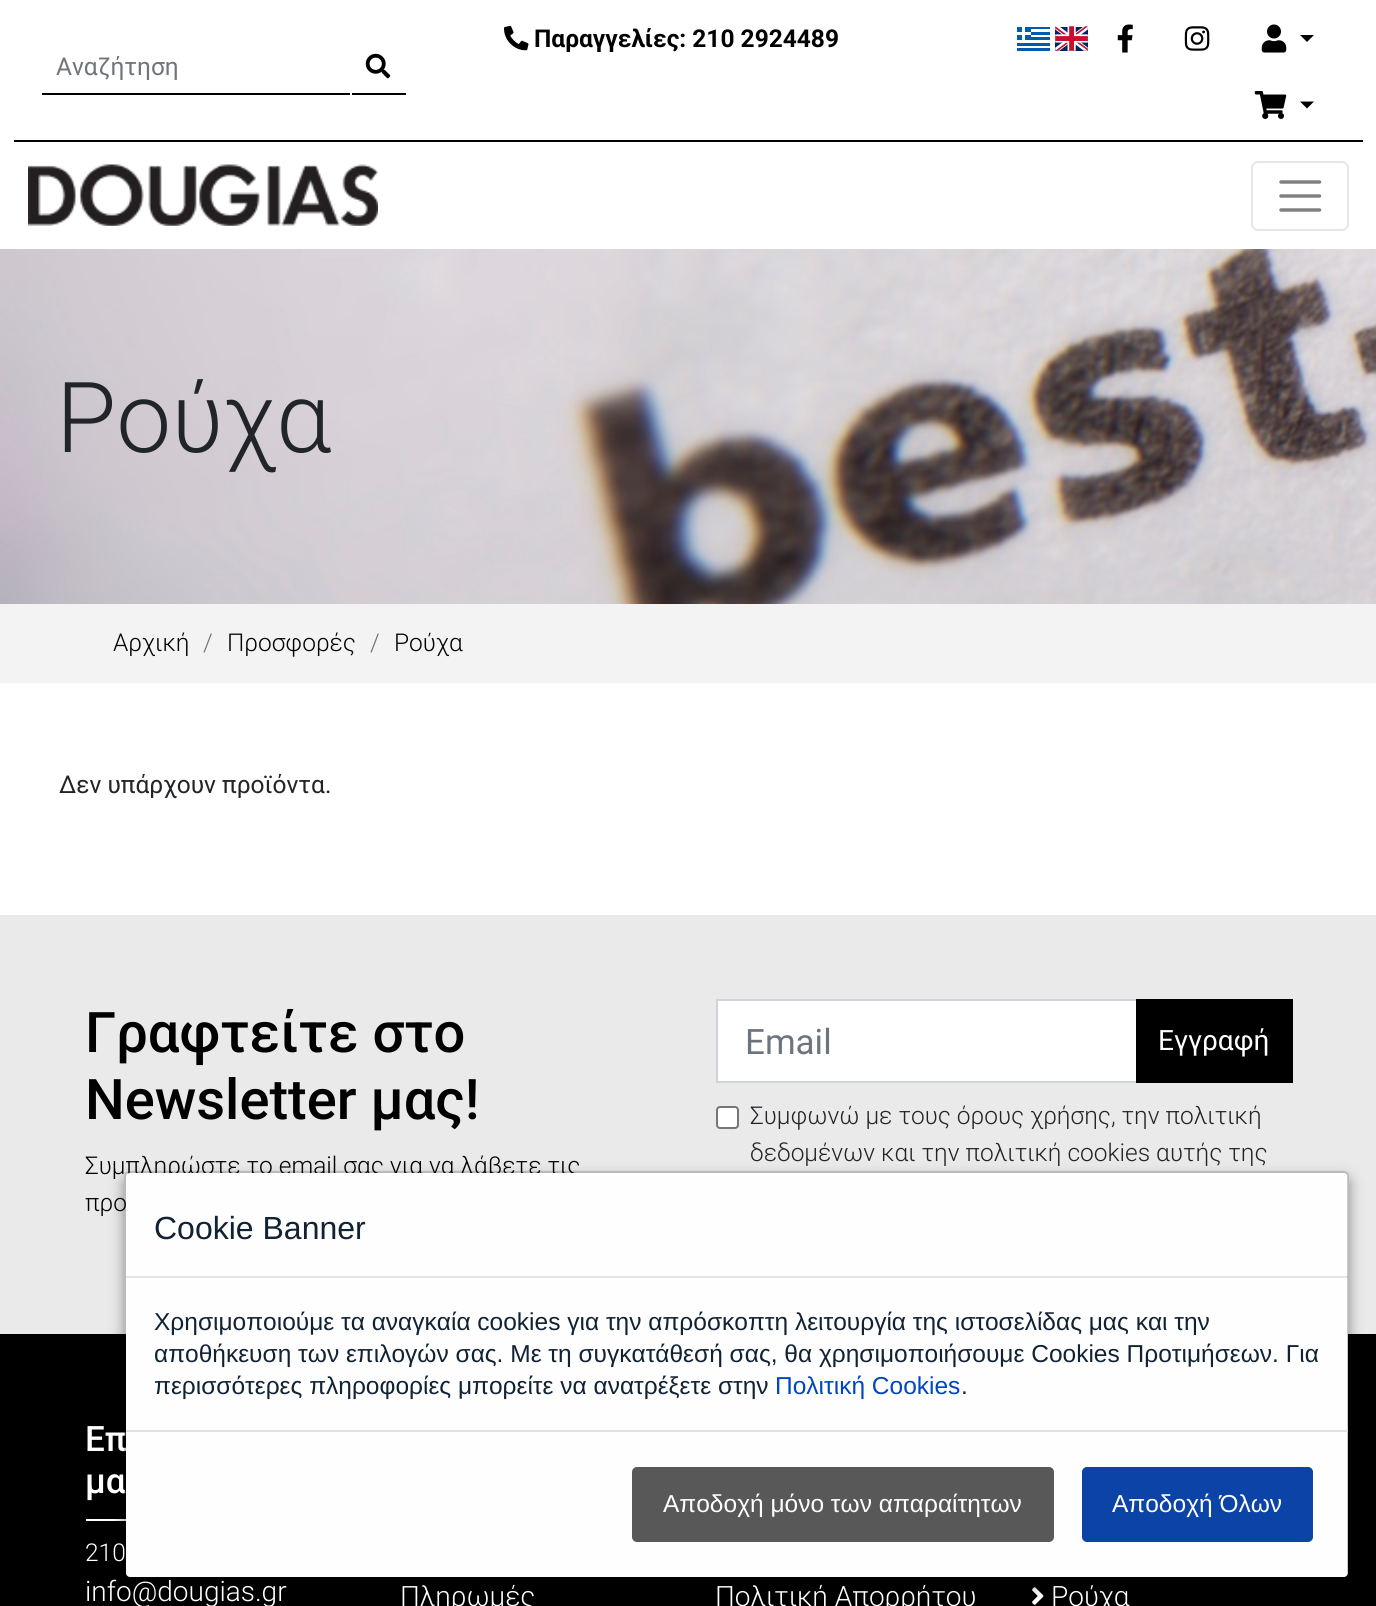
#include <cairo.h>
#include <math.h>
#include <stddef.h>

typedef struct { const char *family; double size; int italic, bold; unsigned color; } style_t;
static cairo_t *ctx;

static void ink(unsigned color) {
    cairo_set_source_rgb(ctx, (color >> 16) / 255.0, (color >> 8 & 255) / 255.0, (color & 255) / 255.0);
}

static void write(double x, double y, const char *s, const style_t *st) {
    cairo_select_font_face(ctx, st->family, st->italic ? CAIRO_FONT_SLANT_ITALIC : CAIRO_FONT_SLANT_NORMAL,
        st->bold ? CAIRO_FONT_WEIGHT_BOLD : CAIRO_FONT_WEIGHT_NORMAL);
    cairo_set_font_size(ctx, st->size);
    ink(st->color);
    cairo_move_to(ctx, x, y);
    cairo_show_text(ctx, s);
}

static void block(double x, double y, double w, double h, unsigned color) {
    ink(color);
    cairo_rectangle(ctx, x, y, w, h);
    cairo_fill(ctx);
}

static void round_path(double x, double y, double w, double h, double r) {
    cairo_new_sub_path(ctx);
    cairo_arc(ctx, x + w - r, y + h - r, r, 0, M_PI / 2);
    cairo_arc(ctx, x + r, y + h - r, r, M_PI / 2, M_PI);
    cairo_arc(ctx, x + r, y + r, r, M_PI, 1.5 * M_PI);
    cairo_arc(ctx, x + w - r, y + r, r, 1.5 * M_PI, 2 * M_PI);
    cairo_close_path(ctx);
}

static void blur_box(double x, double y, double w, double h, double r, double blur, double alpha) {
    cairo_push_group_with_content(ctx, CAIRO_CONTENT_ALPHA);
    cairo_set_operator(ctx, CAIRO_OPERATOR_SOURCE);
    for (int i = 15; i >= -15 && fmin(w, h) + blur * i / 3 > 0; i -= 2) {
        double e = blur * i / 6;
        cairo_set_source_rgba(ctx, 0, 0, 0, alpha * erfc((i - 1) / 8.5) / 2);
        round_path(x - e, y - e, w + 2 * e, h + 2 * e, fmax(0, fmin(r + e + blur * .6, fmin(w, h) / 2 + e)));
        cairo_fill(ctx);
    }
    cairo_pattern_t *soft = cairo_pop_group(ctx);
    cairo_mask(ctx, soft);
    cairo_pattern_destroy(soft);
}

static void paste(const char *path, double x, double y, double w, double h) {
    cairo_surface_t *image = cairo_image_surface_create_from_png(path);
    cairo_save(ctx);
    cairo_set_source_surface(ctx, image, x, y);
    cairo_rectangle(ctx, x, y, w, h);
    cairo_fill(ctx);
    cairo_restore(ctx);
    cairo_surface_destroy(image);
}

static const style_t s1 = {"Roboto", 24.5, 0, 1, 0x000000};
static const style_t s2 = {"Roboto", 24.5, 0, 0, 0x6c757d};
static const style_t s3 = {"Roboto Light", 98, 0, 0, 0x212529};
static const style_t s4 = {"Roboto Light", 24.5, 0, 0, 0x000000};
static const style_t s5 = {"Roboto Light", 24.5, 0, 0, 0x6c757d};
static const style_t s6 = {"Roboto", 24.5, 0, 0, 0x212529};
static const style_t s7 = {"Roboto Medium", 56, 0, 0, 0x000000};
static const style_t s8 = {"Roboto", 35, 0, 0, 0x6c757d};
static const style_t s9 = {"Roboto", 28, 0, 0, 0xffffff};
static const style_t s10 = {"Roboto Light", 24.5, 0, 0, 0x212529};
static const style_t s11 = {"Roboto Medium", 35, 0, 0, 0xffffff};
static const style_t s12 = {"Roboto Light", 24.5, 0, 0, 0xffffff};
static const style_t s13 = {"Liberation Sans", 32, 0, 0, 0x112233};
static const style_t s14 = {"Liberation Sans", 24.5, 0, 0, 0x112233};
static const style_t s15 = {"Liberation Sans", 24.5, 0, 0, 0x0045c3};
static const style_t s16 = {"Liberation Sans", 24.5, 0, 0, 0xffffff};
static const style_t s17 = {"Roboto Light", 28, 0, 0, 0xffffff};

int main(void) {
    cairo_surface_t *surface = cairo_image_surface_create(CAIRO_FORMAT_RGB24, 1376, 1606);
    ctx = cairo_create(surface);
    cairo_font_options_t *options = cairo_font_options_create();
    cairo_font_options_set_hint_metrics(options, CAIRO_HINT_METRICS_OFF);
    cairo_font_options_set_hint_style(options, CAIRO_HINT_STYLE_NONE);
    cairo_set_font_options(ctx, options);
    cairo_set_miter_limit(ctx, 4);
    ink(0xffffff);
    cairo_paint(ctx);
    block(14, 140, 1349, 2, 0x000000);
    paste("pic1.png", 504, 25, 25, 26);
    write(534, 47, "Παραγγελίες: 210 2924489", &s1);
    paste("pic2.png", 1017, 27, 33, 24);
    paste("pic3.png", 1055, 26, 33, 25);
    paste("pic4.png", 1117, 24, 16, 29);
    paste("pic5.png", 1184, 26, 26, 25);
    paste("pic6.png", 1261, 24, 26, 29);
    cairo_new_path(ctx);
    cairo_move_to(ctx, 1300, 35);
    cairo_line_to(ctx, 1314, 35);
    cairo_line_to(ctx, 1307, 42);
    cairo_close_path(ctx);
    cairo_fill(ctx);
    paste("pic7.png", 1254, 91, 33, 28);
    cairo_new_path(ctx);
    cairo_move_to(ctx, 1300, 101.5);
    cairo_line_to(ctx, 1314, 101.5);
    cairo_line_to(ctx, 1307, 108.5);
    cairo_close_path(ctx);
    cairo_fill(ctx);
    block(40, 93, 366, 2, 0x000000);
    block(40, 93, 2, 2, 0xffffff);
    write(56, 75, "Αναζήτηση", &s2);
    block(350, 93, 2, 2, 0xffffff);
    paste("pic8.png", 365, 53, 26, 26);
    paste("pic9.png", 28, 164, 350, 62);
    round_path(1252, 162, 96, 68, 6);
    ink(0xe6e6e6);
    cairo_stroke(ctx);
    cairo_new_path(ctx);
    cairo_move_to(ctx, 1281, 182);
    cairo_line_to(ctx, 1319.5, 182);
    cairo_move_to(ctx, 1281, 196);
    cairo_line_to(ctx, 1319.5, 196);
    cairo_move_to(ctx, 1281, 210);
    cairo_line_to(ctx, 1319.5, 210);
    ink(0x808080);
    cairo_set_line_width(ctx, 3.5);
    cairo_set_line_cap(ctx, CAIRO_LINE_CAP_ROUND);
    cairo_stroke(ctx);
    paste("pic10.png", 0, 249, 1376, 355);
    write(56, 452, "Ρούχα", &s3);
    block(0, 604, 1376, 79, 0xf3f3f3);
    write(113, 651, "Αρχική", &s4);
    write(203, 651, "/", &s5);
    write(227, 651, "Προσφορές", &s4);
    write(370, 651, "/", &s5);
    write(394, 651, "Ρούχα", &s4);
    write(59, 793, "Δεν υπάρχουν προϊόντα.", &s6);
    block(0, 915, 1376, 419, 0xeaeaea);
    write(85, 1052, "Γραφτείτε στο", &s7);
    write(85, 1119, "Newsletter μας!", &s7);
    write(85, 1174, "Συμπληρώστε το email σας για να λάβετε τις", &s4);
    write(85, 1211, "προ", &s4);
    ink(0xffffff);
    cairo_rectangle(ctx, 717, 1000, 420, 82);
    cairo_fill_preserve(ctx);
    ink(0xced4da);
    cairo_set_line_width(ctx, 2);
    cairo_set_line_cap(ctx, CAIRO_LINE_CAP_BUTT);
    cairo_stroke(ctx);
    write(745, 1054, "Email", &s8);
    block(1136, 999, 157, 84, 0x000000);
    write(1158, 1050, "Εγγραφή", &s9);
    round_path(717, 1107, 21, 21, 3);
    cairo_fill_preserve(ctx);
    ink(0x767676);
    cairo_stroke(ctx);
    write(750, 1124, "Συμφωνώ με τους όρους χρήσης, την πολιτική", &s10);
    write(750, 1161, "δεδομένων και την πολιτική cookies αυτής της", &s10);
    block(0, 1334, 1376, 272, 0x000000);
    block(86, 1519, 40, 2, 0xffffff);
    paste("pic11.png", 1032, 1587, 12, 18);
    cairo_save(ctx);
    cairo_set_fill_rule(ctx, CAIRO_FILL_RULE_EVEN_ODD);
    cairo_new_path(ctx);
    cairo_move_to(ctx, 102, 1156);
    cairo_line_to(ctx, 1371, 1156);
    cairo_line_to(ctx, 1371, 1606);
    cairo_line_to(ctx, 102, 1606);
    cairo_close_path(ctx);
    cairo_move_to(ctx, 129, 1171);
    cairo_line_to(ctx, 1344, 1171);
    cairo_curve_to(ctx, 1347, 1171, 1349, 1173, 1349, 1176);
    cairo_line_to(ctx, 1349, 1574);
    cairo_curve_to(ctx, 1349, 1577, 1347, 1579, 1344, 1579);
    cairo_line_to(ctx, 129, 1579);
    cairo_curve_to(ctx, 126, 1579, 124, 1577, 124, 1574);
    cairo_line_to(ctx, 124, 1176);
    cairo_curve_to(ctx, 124, 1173, 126, 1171, 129, 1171);
    cairo_close_path(ctx);
    cairo_clip(ctx);
    ink(0x000000);
    blur_box(124, 1178, 1225, 408, 5, 7, 0.4);
    cairo_restore(ctx);
    ink(0xfefefe);
    round_path(126, 1173, 1222, 404, 4);
    cairo_fill(ctx);
    write(85, 1451, "Επ", &s11);
    write(85, 1493, "μα", &s11);
    write(85, 1561, "210", &s12);
    round_path(125, 1172, 1223, 406, 4);
    cairo_set_source_rgba(ctx, 0, 0, 0, 0.2);
    cairo_stroke(ctx);
    cairo_set_source_rgba(ctx, 0, 0, 0, 0.1);
    cairo_rectangle(ctx, 126, 1276, 1222, 2);
    cairo_fill(ctx);
    write(154, 1239, "Cookie Banner", &s13);
    write(154, 1330, "Χρησιμοποιούμε τα αναγκαία cookies για την απρόσκοπτη λειτουργία της ιστοσελίδας μας και την", &s14);
    write(154, 1362, "αποθήκευση των επιλογών σας. Με τη συγκατάθεσή σας, θα χρησιμοποιήσουμε Cookies Προτιμήσεων. Για", &s14);
    write(154, 1394, "περισσότερες πληροφορίες μπορείτε να ανατρέξετε στην", &s14);
    write(775, 1394, "Πολιτική Cookies", &s15);
    write(961, 1394, ".", &s14);
    block(126, 1430, 1222, 2, 0xdee2e6);
    ink(0x585858);
    round_path(632, 1467, 422, 75, 5);
    cairo_fill(ctx);
    write(663, 1512, "Αποδοχή μόνο των απαραίτητων", &s16);
    ink(0x0c43a6);
    round_path(1082, 1467, 231, 75, 5);
    cairo_fill(ctx);
    write(1112, 1512, "Αποδοχή Όλων", &s16);
    write(85, 1601, "info@dougias.gr", &s17);
    write(400, 1606, "Πληρωμές", &s17);
    write(715, 1606, "Πολιτική Απορρήτου", &s17);
    write(1051, 1606, "Ρούχα", &s17);
    cairo_surface_write_to_png(surface, "screenshot.png");
    cairo_font_options_destroy(options);
    cairo_destroy(ctx);
    cairo_surface_destroy(surface);
    return 0;
}
